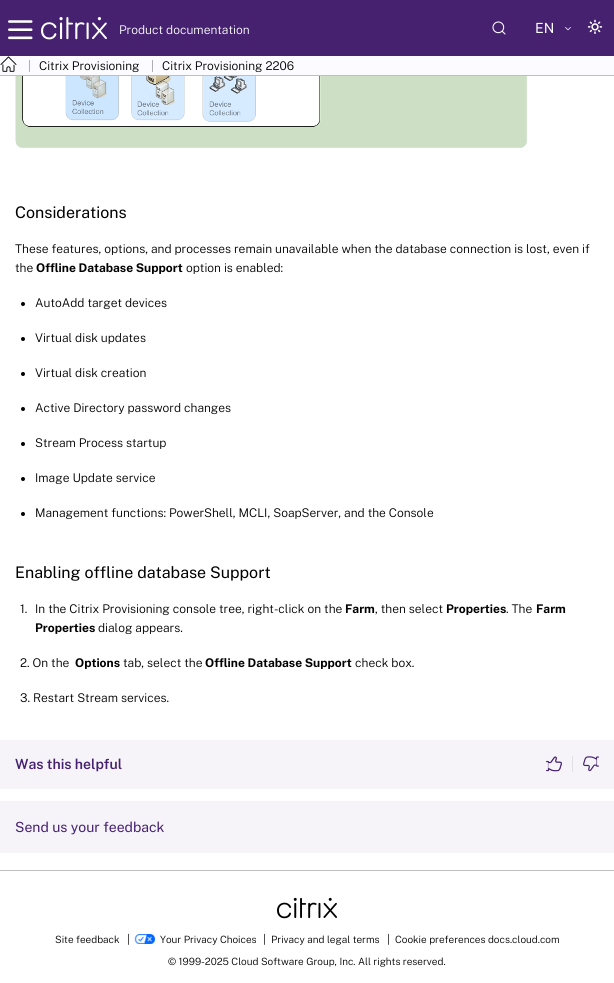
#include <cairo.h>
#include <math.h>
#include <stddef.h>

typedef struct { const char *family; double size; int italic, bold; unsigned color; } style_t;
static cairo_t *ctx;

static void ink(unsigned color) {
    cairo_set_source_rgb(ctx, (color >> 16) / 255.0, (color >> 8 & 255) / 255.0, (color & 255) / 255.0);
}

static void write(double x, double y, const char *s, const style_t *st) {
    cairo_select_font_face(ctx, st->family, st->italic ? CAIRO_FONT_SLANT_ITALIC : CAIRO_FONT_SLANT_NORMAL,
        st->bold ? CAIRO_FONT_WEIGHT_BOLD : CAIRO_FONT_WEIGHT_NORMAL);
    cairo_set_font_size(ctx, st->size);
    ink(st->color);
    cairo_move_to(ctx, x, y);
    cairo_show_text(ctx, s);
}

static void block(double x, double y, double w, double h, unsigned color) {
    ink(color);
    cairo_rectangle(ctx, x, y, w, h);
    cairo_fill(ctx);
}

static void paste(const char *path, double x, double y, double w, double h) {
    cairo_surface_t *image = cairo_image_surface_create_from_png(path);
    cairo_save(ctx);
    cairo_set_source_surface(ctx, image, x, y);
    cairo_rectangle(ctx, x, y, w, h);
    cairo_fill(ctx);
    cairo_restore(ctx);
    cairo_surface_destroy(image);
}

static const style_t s1 = {"Public Sans Light", 12, 0, 0, 0xffffff};
static const style_t s2 = {"Public Sans", 14, 0, 0, 0xffffff};
static const style_t s3 = {"Public Sans Light", 12, 0, 0, 0x979799};
static const style_t s4 = {"Public Sans Light", 12, 0, 0, 0x000000};
static const style_t s5 = {"Public Sans", 16, 0, 0, 0x000000};
static const style_t s6 = {"Public Sans", 12, 0, 1, 0x000000};
static const style_t s7 = {"Public Sans SemiBold", 14, 0, 0, 0x452170};
static const style_t s8 = {"Public Sans", 14, 0, 0, 0x452170};
static const style_t s9 = {"Public Sans Light", 10, 0, 0, 0x000000};
static const style_t s10 = {"Public Sans Light", 11, 0, 0, 0x000000};

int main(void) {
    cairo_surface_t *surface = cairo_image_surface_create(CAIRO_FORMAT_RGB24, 614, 983);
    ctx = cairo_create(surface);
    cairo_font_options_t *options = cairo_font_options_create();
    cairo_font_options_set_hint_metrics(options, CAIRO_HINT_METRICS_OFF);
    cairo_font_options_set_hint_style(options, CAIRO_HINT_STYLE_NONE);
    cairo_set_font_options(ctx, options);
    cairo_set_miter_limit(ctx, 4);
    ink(0xffffff);
    cairo_paint(ctx);
    block(0, 0, 614, 56, 0x452170);
    paste("pic1.png", 8, 20, 25, 20);
    paste("pic2.png", 41, 17, 66, 23);
    write(119, 34, "Product documentation", &s1);
    paste("pic3.png", 492, 21, 14, 14);
    write(535, 33, "EN", &s2);
    paste("pic4.png", 565, 27, 6, 4);
    paste("pic5.png", 587, 19, 16, 15);
    block(0, 56, 614, 19, 0xfcfbff);
    block(0, 75, 614, 1, 0xbebebe);
    paste("pic6.png", 0, 56, 17, 16);
    write(28, 70, "|", &s3);
    write(39, 70, "Citrix Provisioning", &s4);
    write(151, 70, "|", &s3);
    write(162, 70, "Citrix Provisioning 2206", &s4);
    paste("pic7.png", 15, 76, 512, 72);
    write(15, 218, "Considerations", &s5);
    write(15, 253, "These features, options, and processes remain unavailable when the database connection is lost, even if", &s4);
    write(15, 272, "the", &s4);
    write(36, 272, "Offline Database Support", &s6);
    write(186, 272, "option is enabled:", &s4);
    cairo_new_path(ctx);
    cairo_arc(ctx, 23, 304, 2, 0, 2 * M_PI);
    cairo_fill(ctx);
    write(35, 307, "AutoAdd target devices", &s4);
    cairo_new_path(ctx);
    cairo_arc(ctx, 23, 339, 2, 0, 2 * M_PI);
    cairo_fill(ctx);
    write(35, 342, "Virtual disk updates", &s4);
    cairo_new_path(ctx);
    cairo_arc(ctx, 23, 374, 2, 0, 2 * M_PI);
    cairo_fill(ctx);
    write(35, 377, "Virtual disk creation", &s4);
    cairo_new_path(ctx);
    cairo_arc(ctx, 23, 409, 2, 0, 2 * M_PI);
    cairo_fill(ctx);
    write(35, 412, "Active Directory password changes", &s4);
    cairo_new_path(ctx);
    cairo_arc(ctx, 23, 444, 2, 0, 2 * M_PI);
    cairo_fill(ctx);
    write(35, 447, "Stream Process startup", &s4);
    cairo_new_path(ctx);
    cairo_arc(ctx, 23, 479, 2, 0, 2 * M_PI);
    cairo_fill(ctx);
    write(35, 482, "Image Update service", &s4);
    cairo_new_path(ctx);
    cairo_arc(ctx, 23, 514, 2, 0, 2 * M_PI);
    cairo_fill(ctx);
    write(35, 517, "Management functions: PowerShell, MCLI, SoapServer, and the Console", &s4);
    write(15, 578, "Enabling offline database Support", &s5);
    write(20, 613, "1.", &s4);
    write(35, 613, "In the Citrix Provisioning console tree, right-click on the", &s4);
    write(345, 613, "Farm", &s6);
    write(375, 613, ", then select", &s4);
    write(446, 613, "Properties", &s6);
    write(506, 613, ". The", &s4);
    write(536, 613, "Farm", &s6);
    write(35, 632, "Properties", &s6);
    write(98, 632, "dialog appears.", &s4);
    write(20, 667, "2. On the", &s4);
    write(75, 667, "Options", &s6);
    write(123, 667, "tab, select the", &s4);
    write(205, 667, "Offline Database Support", &s6);
    write(355, 667, "check box.", &s4);
    write(20, 702, "3. Restart Stream services.", &s4);
    block(0, 740, 614, 49, 0xf6f4f8);
    write(15, 769, "Was this helpful", &s7);
    paste("pic8.png", 546, 756, 16, 16);
    cairo_save(ctx);
    cairo_rectangle(ctx, 572, 756, 1, 16);
    cairo_clip(ctx);
    cairo_new_path(ctx);
    cairo_move_to(ctx, 573, 756);
    cairo_line_to(ctx, 573, 772);
    ink(0xc5c3c6);
    cairo_set_line_width(ctx, 0.8);
    cairo_stroke(ctx);
    cairo_restore(ctx);
    paste("pic9.png", 583, 756, 16, 16);
    block(0, 801, 614, 52, 0xf6f4f8);
    write(15, 832, "Send us your feedback", &s8);
    block(0, 870, 614, 1, 0xbebebe);
    paste("pic10.png", 277, 897, 60, 22);
    write(55, 943, "Site feedback", &s9);
    write(127, 943, "|", &s10);
    paste("pic11.png", 134, 934, 21, 10);
    write(160, 943, "Your Privacy Choices", &s9);
    write(263, 943, "|", &s10);
    write(271, 943, "Privacy and legal terms", &s9);
    write(387, 943, "|", &s10);
    write(395, 943, "Cookie preferences docs.cloud.com", &s9);
    write(168, 965, "© 1999-2025 Cloud Software Group, Inc. All rights reserved.", &s9);
    cairo_surface_write_to_png(surface, "screenshot.png");
    cairo_font_options_destroy(options);
    cairo_destroy(ctx);
    cairo_surface_destroy(surface);
    return 0;
}
